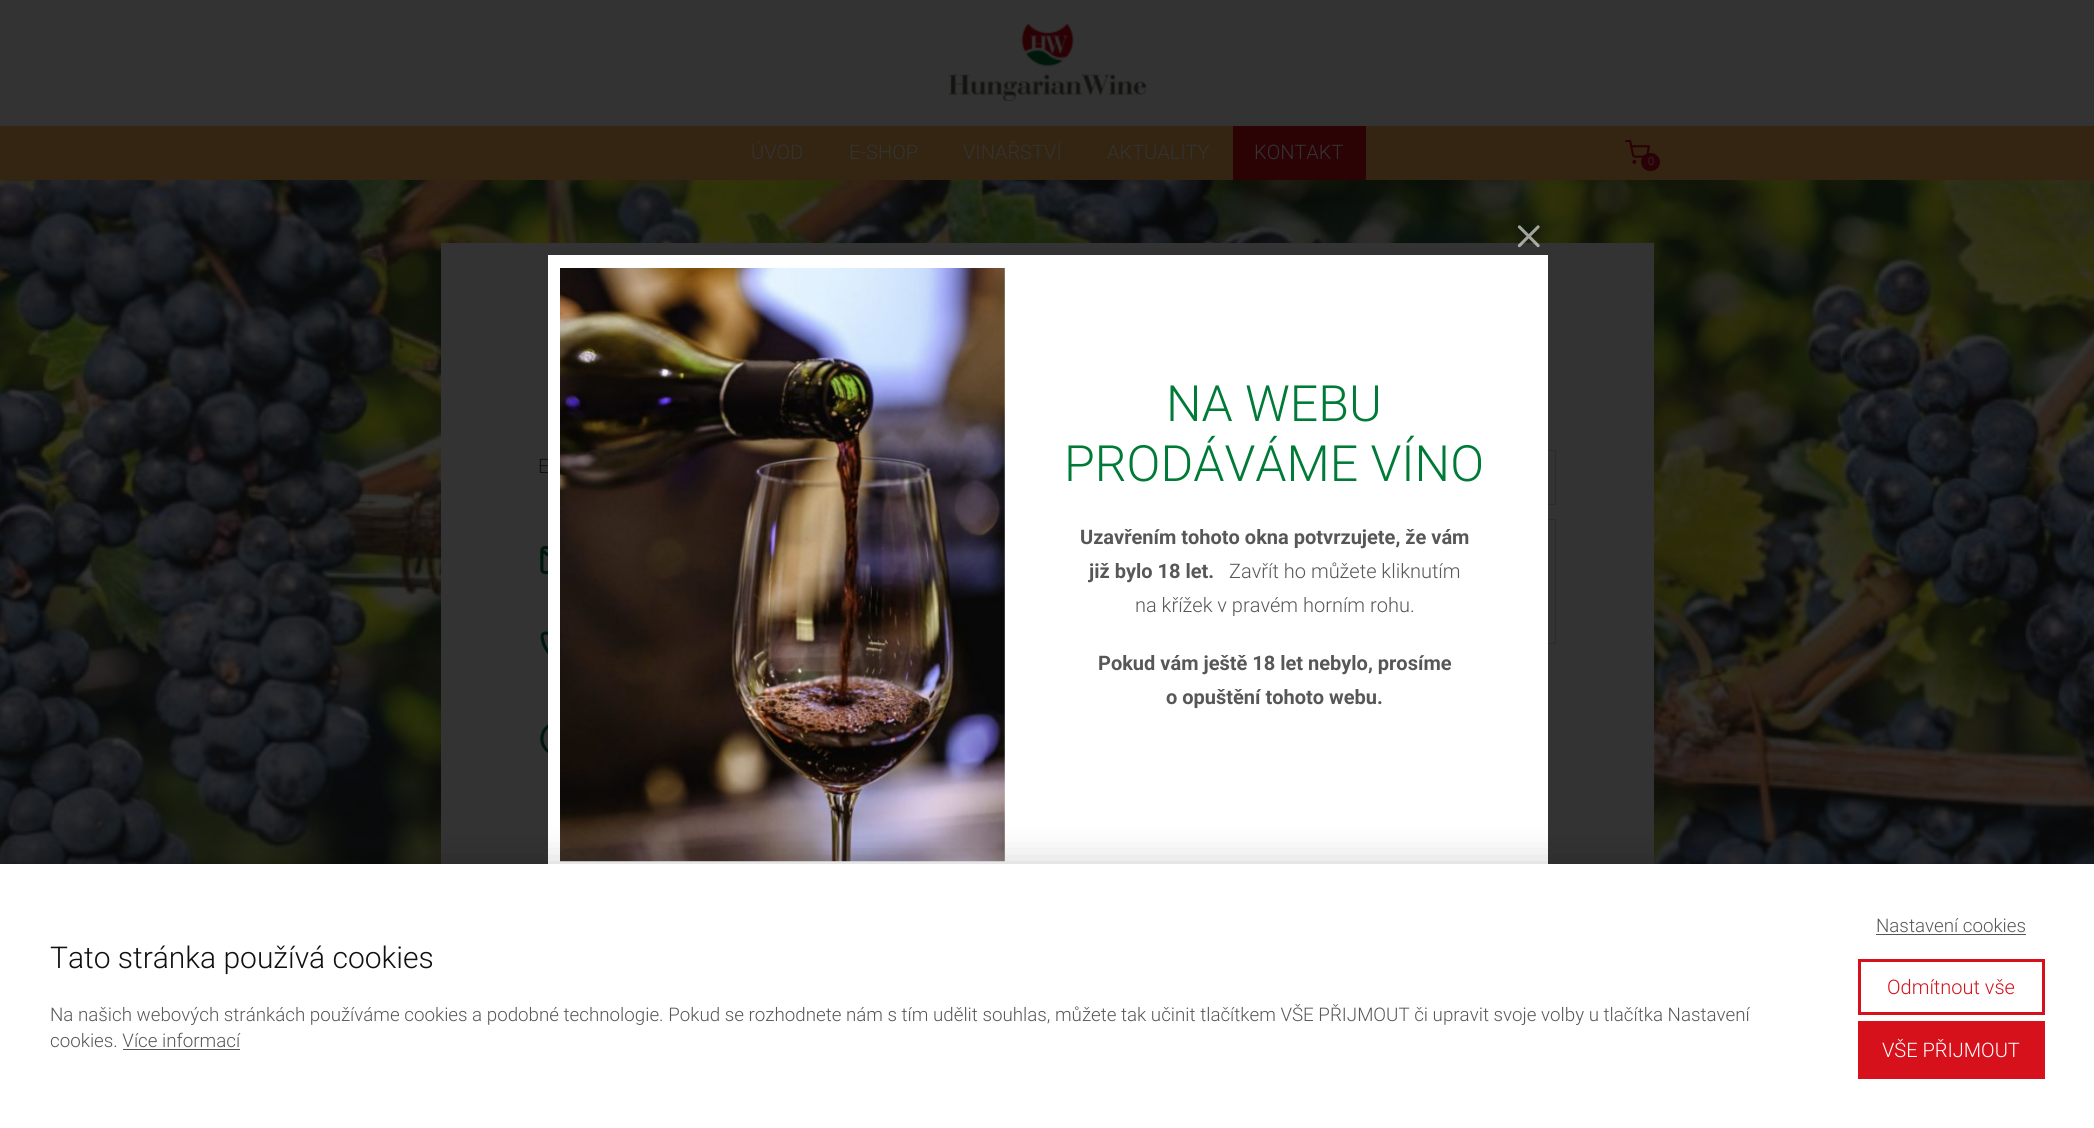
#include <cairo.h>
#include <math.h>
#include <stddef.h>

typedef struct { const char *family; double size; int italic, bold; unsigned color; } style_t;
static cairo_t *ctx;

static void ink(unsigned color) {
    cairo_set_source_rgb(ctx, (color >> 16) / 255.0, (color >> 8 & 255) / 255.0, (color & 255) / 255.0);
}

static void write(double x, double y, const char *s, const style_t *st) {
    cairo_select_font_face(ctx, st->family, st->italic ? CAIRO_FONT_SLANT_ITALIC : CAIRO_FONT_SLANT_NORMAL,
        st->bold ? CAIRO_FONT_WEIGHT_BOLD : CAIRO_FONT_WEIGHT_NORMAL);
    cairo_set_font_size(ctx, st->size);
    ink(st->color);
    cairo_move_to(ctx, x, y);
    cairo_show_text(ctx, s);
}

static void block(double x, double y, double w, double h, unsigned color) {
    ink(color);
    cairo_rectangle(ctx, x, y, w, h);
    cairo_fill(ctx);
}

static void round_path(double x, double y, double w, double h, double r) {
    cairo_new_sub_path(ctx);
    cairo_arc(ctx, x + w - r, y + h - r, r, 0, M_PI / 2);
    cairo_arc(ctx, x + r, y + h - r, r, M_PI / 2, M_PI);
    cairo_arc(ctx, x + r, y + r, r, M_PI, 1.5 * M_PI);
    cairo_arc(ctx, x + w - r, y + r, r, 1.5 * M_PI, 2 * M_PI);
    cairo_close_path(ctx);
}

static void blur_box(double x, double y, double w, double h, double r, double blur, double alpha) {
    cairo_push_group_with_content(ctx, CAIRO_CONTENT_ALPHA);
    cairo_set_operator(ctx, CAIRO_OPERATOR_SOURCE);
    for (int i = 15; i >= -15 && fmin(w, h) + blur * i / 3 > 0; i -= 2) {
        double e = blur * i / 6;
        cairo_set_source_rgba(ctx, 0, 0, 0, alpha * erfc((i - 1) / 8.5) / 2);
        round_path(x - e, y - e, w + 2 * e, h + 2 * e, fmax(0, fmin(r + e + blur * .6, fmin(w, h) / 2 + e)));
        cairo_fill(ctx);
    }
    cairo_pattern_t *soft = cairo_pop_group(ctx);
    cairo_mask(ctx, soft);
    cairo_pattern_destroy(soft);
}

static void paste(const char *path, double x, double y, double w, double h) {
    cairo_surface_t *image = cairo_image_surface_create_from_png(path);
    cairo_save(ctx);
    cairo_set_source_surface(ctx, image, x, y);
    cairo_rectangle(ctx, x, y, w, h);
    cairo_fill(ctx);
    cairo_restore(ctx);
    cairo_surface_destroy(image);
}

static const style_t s1 = {"Roboto Light", 20, 0, 0, 0x333333};
static const style_t s2 = {"Roboto Light", 11, 0, 0, 0x333333};
static const style_t s3 = {"Roboto Light", 20, 0, 0, 0x111111};
static const style_t s4 = {"Roboto Light", 30, 0, 0, 0x111111};
static const style_t s5 = {"Roboto Light", 18.75, 0, 0, 0x575757};
static const style_t s6 = {"Roboto Light", 20, 0, 0, 0xd6111b};
static const style_t s7 = {"Roboto Light", 20, 0, 0, 0xffffff};
static const style_t s8 = {"Roboto Light", 50, 0, 0, 0x007a37};
static const style_t s9 = {"Roboto", 20, 0, 1, 0x575757};
static const style_t s10 = {"Roboto Light", 20, 0, 0, 0x575757};

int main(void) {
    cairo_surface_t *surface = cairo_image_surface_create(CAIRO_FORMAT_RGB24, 2094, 1128);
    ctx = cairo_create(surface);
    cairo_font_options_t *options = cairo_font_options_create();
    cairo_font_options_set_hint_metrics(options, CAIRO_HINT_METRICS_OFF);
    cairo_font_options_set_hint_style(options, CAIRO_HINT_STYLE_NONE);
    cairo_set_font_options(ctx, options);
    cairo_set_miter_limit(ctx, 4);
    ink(0xffffff);
    cairo_paint(ctx);
    block(0, 0, 2094, 126, 0x333333);
    paste("pic1.png", 949, 23, 198, 79);
    block(0, 126, 2094, 54, 0x332511);
    write(751, 159, "ÚVOD", &s1);
    write(849, 159, "E-SHOP", &s1);
    write(963, 159, "VINAŘSTVÍ", &s1);
    write(1107, 159, "AKTUALITY", &s1);
    block(1233, 126, 133, 54, 0x2b0305);
    write(1254, 159, "KONTAKT", &s1);
    paste("pic2.png", 1625, 140, 25, 24);
    ink(0x2a0206);
    round_path(1641, 153, 19, 18, 9);
    cairo_fill(ctx);
    write(1648, 165, "0", &s2);
    paste("pic3.png", 0, 180, 2094, 684);
    block(441, 243, 1213, 621, 0x333333);
    write(538, 473, "E", &s3);
    paste("pic4.png", 540, 545, 8, 30);
    paste("pic5.png", 540, 631, 8, 24);
    paste("pic6.png", 540, 724, 8, 29);
    cairo_rectangle(ctx, 1320.5, 450.5, 235, 54);
    ink(0x2b2b2b);
    cairo_set_line_width(ctx, 1);
    cairo_stroke(ctx);
    cairo_rectangle(ctx, 1073.5, 519.5, 482, 124);
    cairo_stroke(ctx);
    block(548, 255, 1000, 609, 0xffffff);
    paste("pic8.png", 560, 268, 445, 594);
    ink(0x000000);
    blur_box(0, 864, 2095, 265, 0, 19, 0.2);
    block(0, 864, 2094, 264, 0xffffff);
    write(50, 968, "Tato stránka používá cookies", &s4);
    write(50, 1021, "Na našich webových stránkách používáme cookies a podobné technologie. Pokud se rozhodnete nám s tím udělit souhlas, můžete tak učinit tlačítkem VŠE PŘIJMOUT či upravit svoje volby u tlačítka Nastavení", &s5);
    write(50, 1047, "cookies. Více informací", &s5);
    block(123, 1049, 117, 1, 0x555555);
    write(1876, 932, "Nastavení cookies", &s5);
    block(1876, 934, 150, 1, 0x555555);
    cairo_rectangle(ctx, 1859.5, 960.5, 184, 53);
    ink(0xd6111b);
    cairo_set_line_width(ctx, 3);
    cairo_stroke(ctx);
    write(1887, 994, "Odmítnout vše", &s6);
    block(1858, 1021, 187, 58, 0xd6111b);
    write(1882, 1057, "VŠE PŘIJMOUT", &s7);
    paste("pic7.png", 1517, 225, 23, 23);
    write(1166, 421, "NA WEBU", &s8);
    write(1064, 481, "PRODÁVÁME VÍNO", &s8);
    write(1080, 544, "Uzavřením tohoto okna potvrzujete, že vám", &s9);
    write(1089, 578, "již bylo 18 let.", &s9);
    write(1229, 578, "Zavřít ho můžete kliknutím", &s10);
    write(1135, 612, "na křížek v pravém horním rohu.", &s10);
    write(1098, 670, "Pokud vám ještě 18 let nebylo, prosíme", &s9);
    write(1166, 704, "o opuštění tohoto webu.", &s9);
    cairo_surface_write_to_png(surface, "screenshot.png");
    cairo_font_options_destroy(options);
    cairo_destroy(ctx);
    cairo_surface_destroy(surface);
    return 0;
}
